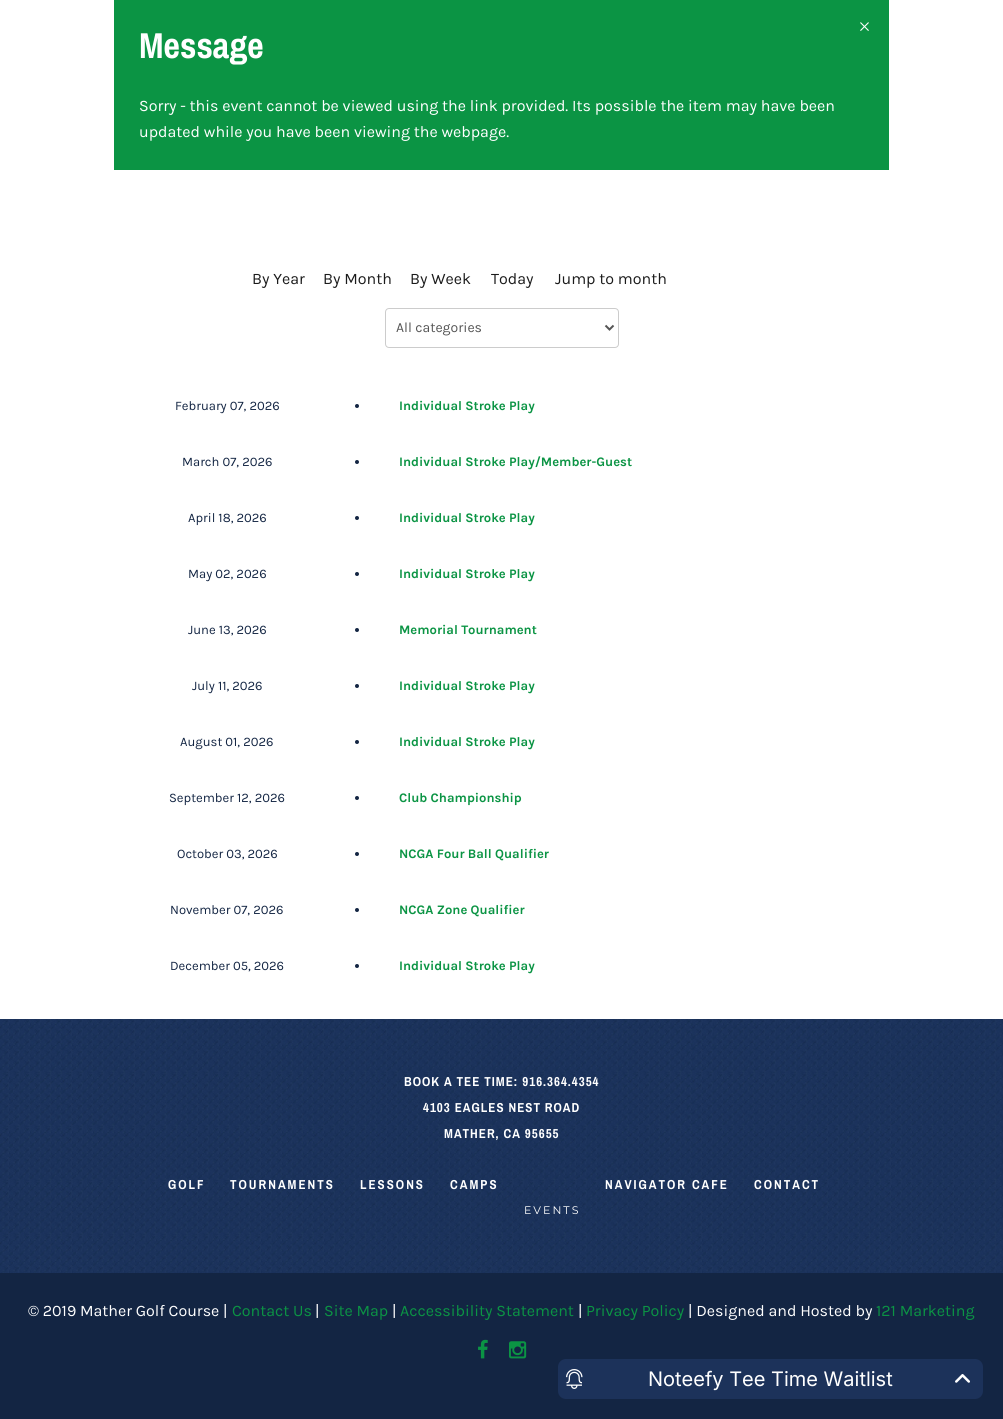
#include <cairo.h>
#include <math.h>
#include <stddef.h>

typedef struct { const char *family; double size; int italic, bold; unsigned color; } style_t;
static cairo_t *ctx;

static void ink(unsigned color) {
    cairo_set_source_rgb(ctx, (color >> 16) / 255.0, (color >> 8 & 255) / 255.0, (color & 255) / 255.0);
}

static void write(double x, double y, const char *s, const style_t *st) {
    cairo_select_font_face(ctx, st->family, st->italic ? CAIRO_FONT_SLANT_ITALIC : CAIRO_FONT_SLANT_NORMAL,
        st->bold ? CAIRO_FONT_WEIGHT_BOLD : CAIRO_FONT_WEIGHT_NORMAL);
    cairo_set_font_size(ctx, st->size);
    ink(st->color);
    cairo_move_to(ctx, x, y);
    cairo_show_text(ctx, s);
}

static void write_spaced(double x, double y, const char *s, double letter, double word) {
    cairo_move_to(ctx, x, y);
    while (*s) {
        char ch[5] = {0};
        int n = 0;
        do ch[n++] = *s++; while ((*s & 0xC0) == 0x80);
        cairo_show_text(ctx, ch);
        cairo_rel_move_to(ctx, letter + word * (*ch == ' '), 0);
    }
}

static void block(double x, double y, double w, double h, unsigned color) {
    ink(color);
    cairo_rectangle(ctx, x, y, w, h);
    cairo_fill(ctx);
}

static void round_path(double x, double y, double w, double h, double r) {
    cairo_new_sub_path(ctx);
    cairo_arc(ctx, x + w - r, y + h - r, r, 0, M_PI / 2);
    cairo_arc(ctx, x + r, y + h - r, r, M_PI / 2, M_PI);
    cairo_arc(ctx, x + r, y + r, r, M_PI, 1.5 * M_PI);
    cairo_arc(ctx, x + w - r, y + r, r, 1.5 * M_PI, 2 * M_PI);
    cairo_close_path(ctx);
}

static void paste(const char *path, double x, double y, double w, double h) {
    cairo_surface_t *image = cairo_image_surface_create_from_png(path);
    cairo_save(ctx);
    cairo_set_source_surface(ctx, image, x, y);
    cairo_rectangle(ctx, x, y, w, h);
    cairo_fill(ctx);
    cairo_restore(ctx);
    cairo_surface_destroy(image);
}

static const style_t s1 = {"Archivo Narrow", 36, 0, 1, 0xffffff};
static const style_t s2 = {"Karla", 16, 0, 0, 0xffffff};
static const style_t s3 = {"Karla", 16, 0, 0, 0x1b1b1b};
static const style_t s4 = {"Karla", 14, 0, 0, 0x555555};
static const style_t s5 = {"Karla", 13, 0, 0, 0x132543};
static const style_t s6 = {"Karla", 13, 0, 1, 0x0b9444};
static const style_t s7 = {"Karla", 16, 0, 0, 0x0b9444};
static const style_t s8 = {"Inter", 20, 0, 0, 0xffffff};

int main(void) {
    cairo_surface_t *surface = cairo_image_surface_create(CAIRO_FORMAT_RGB24, 1003, 1419);
    ctx = cairo_create(surface);
    cairo_font_options_t *options = cairo_font_options_create();
    cairo_font_options_set_hint_metrics(options, CAIRO_HINT_METRICS_OFF);
    cairo_font_options_set_hint_style(options, CAIRO_HINT_STYLE_NONE);
    cairo_set_font_options(ctx, options);
    cairo_set_miter_limit(ctx, 4);
    ink(0xffffff);
    cairo_paint(ctx);
    block(114, 0, 775, 170, 0x0b9444);
    paste("pic1.png", 860, 22, 9, 9);
    write(139, 58, "Message", &s1);
    write(139, 111, "Sorry - this event cannot be viewed using the link provided. Its possible the item may have been", &s2);
    write(139, 137, "updated while you have been viewing the webpage.", &s2);
    write(252, 284, "By Year", &s3);
    write(323, 284, "By Month", &s3);
    write(410, 284, "By Week", &s3);
    write(491, 284, "Today", &s3);
    write(555, 284, "Jump to month", &s3);
    round_path(385.5, 308.5, 233, 39, 3.5);
    ink(0xcccccc);
    cairo_set_line_width(ctx, 1);
    cairo_stroke(ctx);
    cairo_new_path(ctx);
    cairo_move_to(ctx, 605.5, 325.5);
    cairo_line_to(ctx, 609.5, 329.5);
    cairo_line_to(ctx, 613.5, 325.5);
    ink(0x555555);
    cairo_set_line_width(ctx, 2);
    cairo_stroke(ctx);
    write(396, 332, "All categories", &s4);
    write(175, 410, "February 07, 2026", &s5);
    cairo_new_path(ctx);
    cairo_arc(ctx, 357, 406, 2, 0, 2 * M_PI);
    cairo_fill(ctx);
    write(399, 410, "Individual Stroke Play", &s6);
    write(182, 466, "March 07, 2026", &s5);
    cairo_new_path(ctx);
    cairo_arc(ctx, 357, 462, 2, 0, 2 * M_PI);
    cairo_fill(ctx);
    write(399, 466, "Individual Stroke Play/Member-Guest", &s6);
    write(188, 522, "April 18, 2026", &s5);
    cairo_new_path(ctx);
    cairo_arc(ctx, 357, 518, 2, 0, 2 * M_PI);
    cairo_fill(ctx);
    write(399, 522, "Individual Stroke Play", &s6);
    write(188, 578, "May 02, 2026", &s5);
    cairo_new_path(ctx);
    cairo_arc(ctx, 357, 574, 2, 0, 2 * M_PI);
    cairo_fill(ctx);
    write(399, 578, "Individual Stroke Play", &s6);
    write(188, 634, "June 13, 2026", &s5);
    cairo_new_path(ctx);
    cairo_arc(ctx, 357, 630, 2, 0, 2 * M_PI);
    cairo_fill(ctx);
    write(399, 634, "Memorial Tournament", &s6);
    write(192, 690, "July 11, 2026", &s5);
    cairo_new_path(ctx);
    cairo_arc(ctx, 357, 686, 2, 0, 2 * M_PI);
    cairo_fill(ctx);
    write(399, 690, "Individual Stroke Play", &s6);
    write(180, 746, "August 01, 2026", &s5);
    cairo_new_path(ctx);
    cairo_arc(ctx, 357, 742, 2, 0, 2 * M_PI);
    cairo_fill(ctx);
    write(399, 746, "Individual Stroke Play", &s6);
    write(169, 802, "September 12, 2026", &s5);
    cairo_new_path(ctx);
    cairo_arc(ctx, 357, 798, 2, 0, 2 * M_PI);
    cairo_fill(ctx);
    write(399, 802, "Club Championship", &s6);
    write(177, 858, "October 03, 2026", &s5);
    cairo_new_path(ctx);
    cairo_arc(ctx, 357, 854, 2, 0, 2 * M_PI);
    cairo_fill(ctx);
    write(399, 858, "NCGA Four Ball Qualifier", &s6);
    write(170, 914, "November 07, 2026", &s5);
    cairo_new_path(ctx);
    cairo_arc(ctx, 357, 910, 2, 0, 2 * M_PI);
    cairo_fill(ctx);
    write(399, 914, "NCGA Zone Qualifier", &s6);
    write(170, 970, "December 05, 2026", &s5);
    cairo_new_path(ctx);
    cairo_arc(ctx, 357, 966, 2, 0, 2 * M_PI);
    cairo_fill(ctx);
    write(399, 970, "Individual Stroke Play", &s6);
    paste("pic2.png", 0, 1019, 1003, 254);
    cairo_select_font_face(ctx, "Archivo Narrow", CAIRO_FONT_SLANT_NORMAL, CAIRO_FONT_WEIGHT_BOLD);
    ink(0xffffff);
    write_spaced(404, 1086, "BOOK A TEE TIME: 916.364.4354", 1, 0);
    write_spaced(423, 1112, "4103 EAGLES NEST ROAD", 1, 0);
    write_spaced(444, 1138, "MATHER, CA 95655", 1, 0);
    write_spaced(168, 1189, "GOLF", 2, 0);
    write_spaced(230, 1189, "TOURNAMENTS", 2, 0);
    write_spaced(360, 1189, "LESSONS", 2, 0);
    write_spaced(450, 1189, "CAMPS", 2, 0);
    write_spaced(605, 1189, "NAVIGATOR CAFE", 2, 0);
    write_spaced(754, 1189, "CONTACT", 2, 0);
    cairo_select_font_face(ctx, "Montserrat Thin", CAIRO_FONT_SLANT_NORMAL, CAIRO_FONT_WEIGHT_NORMAL);
    cairo_set_font_size(ctx, 11);
    write_spaced(524, 1214, "EVENTS", 2, 0);
    block(0, 1273, 1003, 146, 0x132543);
    write(28, 1316, "© 2019 Mather Golf Course |", &s2);
    write(232, 1316, "Contact Us", &s7);
    write(315, 1316, "|", &s2);
    write(324, 1316, "Site Map", &s7);
    write(392, 1316, "|", &s2);
    write(400, 1316, "Accessibility Statement", &s7);
    write(578, 1316, "|", &s2);
    write(586, 1316, "Privacy Policy", &s7);
    write(688, 1316, "| Designed and Hosted by", &s2);
    write(876, 1316, "121 Marketing", &s7);
    paste("pic3.png", 478, 1339, 10, 20);
    paste("pic4.png", 509, 1341, 18, 18);
    ink(0x1c325a);
    round_path(558, 1359, 425, 40, 8);
    cairo_fill(ctx);
    paste("pic5.png", 566, 1369, 17, 20);
    write(648, 1386, "Noteefy Tee Time Waitlist", &s8);
    paste("pic6.png", 955, 1374, 15, 9);
    cairo_surface_write_to_png(surface, "screenshot.png");
    cairo_font_options_destroy(options);
    cairo_destroy(ctx);
    cairo_surface_destroy(surface);
    return 0;
}
